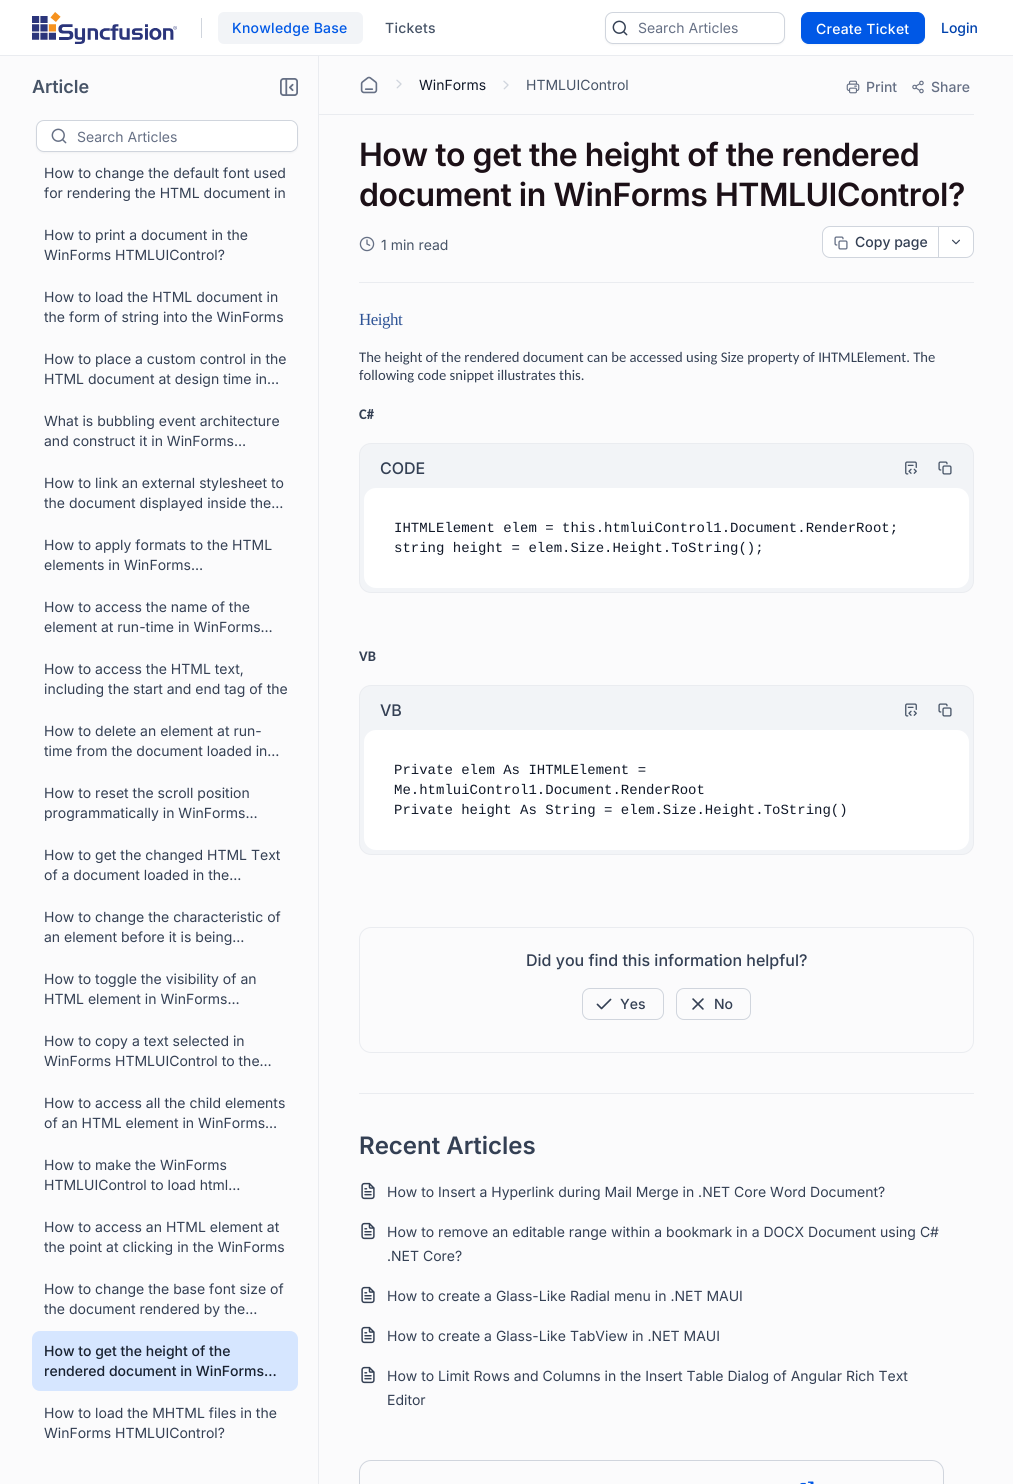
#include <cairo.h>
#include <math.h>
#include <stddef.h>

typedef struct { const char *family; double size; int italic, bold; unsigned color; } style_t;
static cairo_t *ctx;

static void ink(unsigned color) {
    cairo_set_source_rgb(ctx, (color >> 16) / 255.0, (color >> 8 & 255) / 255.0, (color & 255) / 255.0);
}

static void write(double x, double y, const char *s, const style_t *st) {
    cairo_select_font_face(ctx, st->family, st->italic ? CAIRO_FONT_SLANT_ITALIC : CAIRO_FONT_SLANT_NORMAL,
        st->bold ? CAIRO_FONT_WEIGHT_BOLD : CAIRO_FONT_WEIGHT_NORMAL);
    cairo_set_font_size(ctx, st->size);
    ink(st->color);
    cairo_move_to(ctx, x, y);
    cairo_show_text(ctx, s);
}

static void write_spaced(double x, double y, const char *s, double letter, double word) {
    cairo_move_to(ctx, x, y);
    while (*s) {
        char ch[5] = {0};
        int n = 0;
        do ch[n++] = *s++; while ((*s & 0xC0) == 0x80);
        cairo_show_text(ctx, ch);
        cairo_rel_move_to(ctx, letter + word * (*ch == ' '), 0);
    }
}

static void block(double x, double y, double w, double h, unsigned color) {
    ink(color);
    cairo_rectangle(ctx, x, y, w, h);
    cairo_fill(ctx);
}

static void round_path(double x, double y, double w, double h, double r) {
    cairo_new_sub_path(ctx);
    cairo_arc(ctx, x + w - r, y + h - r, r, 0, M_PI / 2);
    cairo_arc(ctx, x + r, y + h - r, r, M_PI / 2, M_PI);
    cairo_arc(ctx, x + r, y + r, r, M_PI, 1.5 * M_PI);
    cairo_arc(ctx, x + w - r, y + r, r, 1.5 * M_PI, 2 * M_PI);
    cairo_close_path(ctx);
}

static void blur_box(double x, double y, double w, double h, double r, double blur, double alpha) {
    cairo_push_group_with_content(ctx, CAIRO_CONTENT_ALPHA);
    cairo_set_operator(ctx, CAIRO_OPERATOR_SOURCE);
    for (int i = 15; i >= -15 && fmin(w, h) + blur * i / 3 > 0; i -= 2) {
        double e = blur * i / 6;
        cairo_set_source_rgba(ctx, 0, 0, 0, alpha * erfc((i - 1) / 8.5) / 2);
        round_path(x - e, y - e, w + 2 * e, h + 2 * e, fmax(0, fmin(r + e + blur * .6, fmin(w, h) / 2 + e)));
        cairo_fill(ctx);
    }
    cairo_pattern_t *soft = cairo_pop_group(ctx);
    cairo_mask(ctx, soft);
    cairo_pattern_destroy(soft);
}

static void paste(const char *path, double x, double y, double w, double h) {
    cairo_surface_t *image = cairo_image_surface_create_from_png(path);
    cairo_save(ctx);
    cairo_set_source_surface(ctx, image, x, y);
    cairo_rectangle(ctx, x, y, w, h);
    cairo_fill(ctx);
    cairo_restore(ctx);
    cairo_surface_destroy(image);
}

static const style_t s1 = {"Inter", 14, 0, 0, 0x667085};
static const style_t s2 = {"Inter Medium", 14, 0, 0, 0x0042ad};
static const style_t s3 = {"Inter SemiBold", 18, 0, 0, 0x475467};
static const style_t s4 = {"Inter", 14, 0, 0, 0x344054};
static const style_t s5 = {"Inter Medium", 14, 0, 0, 0x18212f};
static const style_t s6 = {"Inter", 14, 0, 0, 0x101828};
static const style_t s7 = {"Inter", 14, 0, 0, 0x475467};
static const style_t s8 = {"Inter Medium", 14, 0, 0, 0x667085};
static const style_t s9 = {"Inter Medium", 14, 0, 0, 0x344054};
static const style_t s10 = {"Carlito", 14.65, 0, 0, 0x344054};
static const style_t s11 = {"Carlito", 14.65, 0, 1, 0x344054};
static const style_t s12 = {"Inter Medium", 16, 0, 0, 0x344054};
static const style_t s13 = {"Liberation Mono", 14, 0, 0, 0x101828};
static const style_t s14 = {"Inter SemiBold", 24, 0, 0, 0x344054};

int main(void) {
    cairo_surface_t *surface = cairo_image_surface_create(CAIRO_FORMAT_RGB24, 1013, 1484);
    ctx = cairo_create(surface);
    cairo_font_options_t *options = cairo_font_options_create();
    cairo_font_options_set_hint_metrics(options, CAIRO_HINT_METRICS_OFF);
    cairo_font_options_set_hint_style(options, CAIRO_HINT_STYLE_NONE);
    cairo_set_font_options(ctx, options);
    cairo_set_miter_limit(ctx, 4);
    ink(0xffffff);
    cairo_paint(ctx);
    block(0, 55, 1013, 1, 0xeaecf0);
    paste("pic1.png", 32, 12, 145, 32);
    block(201, 18, 1, 20, 0xd0d5dd);
    ink(0xf2f4f7);
    round_path(218, 12, 145, 32, 6);
    cairo_fill(ctx);
    cairo_select_font_face(ctx, "Inter Medium", CAIRO_FONT_SLANT_NORMAL, CAIRO_FONT_WEIGHT_NORMAL);
    cairo_set_font_size(ctx, 14);
    ink(0x0058e6);
    write_spaced(232, 33, "Knowledge Base", 0.25, 0);
    ink(0x475467);
    write_spaced(385, 33, "Tickets", 0.25, 0);
    ink(0x101828);
    blur_box(605, 13, 180, 32, 8, 1, 0.05);
    ink(0xffffff);
    round_path(605.5, 12.5, 179, 31, 7.5);
    cairo_fill_preserve(ctx);
    ink(0xd0d5dd);
    cairo_set_line_width(ctx, 1);
    cairo_stroke(ctx);
    paste("pic2.png", 612, 20, 16, 16);
    write(638, 33, "Search Articles", &s1);
    ink(0x101828);
    blur_box(801, 13, 124, 32, 8, 1, 0.05);
    ink(0x0058e6);
    round_path(801.5, 12.5, 123, 31, 7.5);
    cairo_fill_preserve(ctx);
    cairo_stroke(ctx);
    cairo_select_font_face(ctx, "Inter Medium", CAIRO_FONT_SLANT_NORMAL, CAIRO_FONT_WEIGHT_NORMAL);
    ink(0xffffff);
    write_spaced(816, 34, "Create Ticket", 0.25, 0);
    write(941, 33, "Login", &s2);
    block(0, 56, 1013, 1428, 0xfbfbfc);
    write(32, 93, "Article", &s3);
    paste("pic3.png", 280, 78, 18, 18);
    ink(0x101828);
    blur_box(36, 121, 262, 32, 8, 1, 0.05);
    ink(0xffffff);
    round_path(36.5, 120.5, 261, 31, 7.5);
    cairo_fill_preserve(ctx);
    ink(0xd0d5dd);
    cairo_stroke(ctx);
    paste("pic4.png", 51, 128, 16, 16);
    ink(0xffffff);
    round_path(77, 121, 220, 30, 8);
    cairo_fill(ctx);
    write(77, 142, "Search Articles", &s1);
    write(44, 178, "How to change the default font used", &s4);
    write(44, 198, "for rendering the HTML document in", &s4);
    write(44, 240, "How to print a document in the", &s4);
    write(44, 260, "WinForms HTMLUIControl?", &s4);
    write(44, 302, "How to load the HTML document in", &s4);
    write(44, 322, "the form of string into the WinForms", &s4);
    write(44, 364, "How to place a custom control in the", &s4);
    write(44, 384, "HTML document at design time in…", &s4);
    write(44, 426, "What is bubbling event architecture", &s4);
    write(44, 446, "and construct it in WinForms…", &s4);
    write(44, 488, "How to link an external stylesheet to", &s4);
    write(44, 508, "the document displayed inside the…", &s4);
    write(44, 550, "How to apply formats to the HTML", &s4);
    write(44, 570, "elements in WinForms…", &s4);
    write(44, 612, "How to access the name of the", &s4);
    write(44, 632, "element at run-time in WinForms…", &s4);
    write(44, 674, "How to access the HTML text,", &s4);
    write(44, 694, "including the start and end tag of the", &s4);
    write(44, 736, "How to delete an element at run-", &s4);
    write(44, 756, "time from the document loaded in…", &s4);
    write(44, 798, "How to reset the scroll position", &s4);
    write(44, 818, "programmatically in WinForms…", &s4);
    write(44, 860, "How to get the changed HTML Text", &s4);
    write(44, 880, "of a document loaded in the…", &s4);
    write(44, 922, "How to change the characteristic of", &s4);
    write(44, 942, "an element before it is being…", &s4);
    write(44, 984, "How to toggle the visibility of an", &s4);
    write(44, 1004, "HTML element in WinForms…", &s4);
    write(44, 1046, "How to copy a text selected in", &s4);
    write(44, 1066, "WinForms HTMLUIControl to the…", &s4);
    write(44, 1108, "How to access all the child elements", &s4);
    write(44, 1128, "of an HTML element in WinForms…", &s4);
    write(44, 1170, "How to make the WinForms", &s4);
    write(44, 1190, "HTMLUIControl to load html…", &s4);
    write(44, 1232, "How to access an HTML element at", &s4);
    write(44, 1252, "the point at clicking in the WinForms", &s4);
    write(44, 1294, "How to change the base font size of", &s4);
    write(44, 1314, "the document rendered by the…", &s4);
    ink(0xd6e6ff);
    round_path(32, 1331, 266, 60, 8);
    cairo_fill(ctx);
    write(44, 1356, "How to get the height of the", &s5);
    write(44, 1376, "rendered document in WinForms…", &s5);
    write(44, 1418, "How to load the MHTML files in the", &s4);
    write(44, 1438, "WinForms HTMLUIControl?", &s4);
    block(318, 56, 1, 1428, 0xeaecf0);
    block(319, 114, 655, 1, 0xeaecf0);
    paste("pic5.png", 360, 76, 18, 18);
    paste("pic6.png", 396, 79, 6, 10);
    write(419, 90, "WinForms", &s6);
    paste("pic6.png", 503, 80, 6, 10);
    write(526, 90, "HTMLUIControl", &s7);
    paste("pic7.png", 846, 80, 14, 14);
    write(866, 92, "Print", &s8);
    paste("pic8.png", 912, 80, 12, 14);
    write(931, 92, "Share", &s8);
    block(359, 282, 615, 1, 0xeaecf0);
    cairo_select_font_face(ctx, "Inter SemiBold", CAIRO_FONT_SLANT_NORMAL, CAIRO_FONT_WEIGHT_NORMAL);
    cairo_set_font_size(ctx, 32);
    ink(0x1c1017);
    write_spaced(359, 166, "How to get the height of the rendered", -0.5, 0);
    write_spaced(359, 206, "document in WinForms HTMLUIControl?", -0.5, 0);
    paste("pic9.png", 359, 236, 16, 16);
    write(381, 250, "1 min read", &s7);
    ink(0xffffff);
    cairo_new_path(ctx);
    cairo_move_to(ctx, 830, 226.5);
    cairo_line_to(ctx, 938.5, 226.5);
    cairo_line_to(ctx, 938.5, 257.5);
    cairo_line_to(ctx, 830, 257.5);
    cairo_curve_to(ctx, 826, 257.5, 822.5, 254, 822.5, 250);
    cairo_line_to(ctx, 822.5, 234);
    cairo_curve_to(ctx, 822.5, 230, 826, 226.5, 830, 226.5);
    cairo_close_path(ctx);
    cairo_fill_preserve(ctx);
    ink(0xd0d5dd);
    cairo_stroke(ctx);
    paste("pic10.png", 834, 236, 14, 14);
    write(855, 247, "Copy page", &s9);
    ink(0xffffff);
    cairo_new_path(ctx);
    cairo_move_to(ctx, 938.5, 226.5);
    cairo_line_to(ctx, 966, 226.5);
    cairo_curve_to(ctx, 970, 226.5, 973.5, 230, 973.5, 234);
    cairo_line_to(ctx, 973.5, 250);
    cairo_curve_to(ctx, 973.5, 254, 970, 257.5, 966, 257.5);
    cairo_line_to(ctx, 938.5, 257.5);
    cairo_close_path(ctx);
    cairo_fill_preserve(ctx);
    ink(0xd0d5dd);
    cairo_stroke(ctx);
    paste("pic11.png", 952, 239, 8, 6);
    cairo_select_font_face(ctx, "Liberation Serif", CAIRO_FONT_SLANT_NORMAL, CAIRO_FONT_WEIGHT_NORMAL);
    cairo_set_font_size(ctx, 17);
    ink(0x2f5496);
    write_spaced(359, 325, "Height", -0.5, 0);
    write(359, 362, "The height of the rendered document can be accessed using Size property of IHTMLElement. The", &s10);
    write(359, 380, "following code snippet illustrates this.", &s10);
    write(359, 419, "C#", &s11);
    ink(0xf2f4f7);
    round_path(359.5, 443.5, 614, 149, 11.5);
    cairo_fill_preserve(ctx);
    ink(0xeaecf0);
    cairo_stroke(ctx);
    write(380, 474, "CODE", &s12);
    paste("pic12.png", 905, 461, 12, 14);
    paste("pic13.png", 938, 461, 14, 14);
    ink(0xffffff);
    round_path(364, 488, 605, 100, 12);
    cairo_fill(ctx);
    write(394, 532, "IHTMLElement elem = this.htmluiControl1.Document.RenderRoot;", &s13);
    write(394, 552, "string height = elem.Size.Height.ToString();", &s13);
    write(359, 661, "VB", &s11);
    ink(0xf2f4f7);
    round_path(359.5, 685.5, 614, 169, 11.5);
    cairo_fill_preserve(ctx);
    ink(0xeaecf0);
    cairo_stroke(ctx);
    write(380, 716, "VB", &s12);
    paste("pic12.png", 905, 703, 12, 14);
    paste("pic13.png", 938, 703, 14, 14);
    ink(0xffffff);
    round_path(364, 730, 605, 120, 12);
    cairo_fill(ctx);
    write(394, 774, "Private elem As IHTMLElement =", &s13);
    write(394, 794, "Me.htmluiControl1.Document.RenderRoot", &s13);
    write(394, 814, "Private height As String = elem.Size.Height.ToString()", &s13);
    round_path(359.5, 927.5, 614, 125, 11.5);
    ink(0xeaecf0);
    cairo_stroke(ctx);
    write(526, 966, "Did you find this information helpful?", &s12);
    round_path(582.5, 988.5, 81, 31, 7.5);
    ink(0xd0d5dd);
    cairo_stroke(ctx);
    paste("pic14.png", 596, 998, 16, 12);
    write(620, 1009, "Yes", &s9);
    round_path(676.5, 988.5, 74, 31, 7.5);
    ink(0xd0d5dd);
    cairo_stroke(ctx);
    paste("pic15.png", 692, 998, 12, 12);
    write(714, 1009, "No", &s9);
    block(359, 1093, 615, 1, 0xeaecf0);
    write(359, 1154, "Recent Articles", &s14);
    paste("pic16.png", 361, 1182, 14, 18);
    write(387, 1197, "How to Insert a Hyperlink during Mail Merge in .NET Core Word Document?", &s4);
    paste("pic16.png", 361, 1222, 14, 18);
    write(387, 1237, "How to remove an editable range within a bookmark in a DOCX Document using C#", &s4);
    write(387, 1261, ".NET Core?", &s4);
    paste("pic16.png", 361, 1286, 14, 18);
    write(387, 1301, "How to create a Glass-Like Radial menu in .NET MAUI", &s4);
    paste("pic16.png", 361, 1326, 14, 18);
    write(387, 1341, "How to create a Glass-Like TabView in .NET MAUI", &s4);
    paste("pic16.png", 361, 1366, 14, 18);
    write(387, 1381, "How to Limit Rows and Columns in the Insert Table Dialog of Angular Rich Text", &s4);
    write(387, 1405, "Editor", &s4);
    round_path(359.5, 1460.5, 584, 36, 11.5);
    ink(0xd0d5dd);
    cairo_stroke(ctx);
    paste("pic17.png", 800, 1481, 14, 3);
    cairo_surface_write_to_png(surface, "screenshot.png");
    cairo_font_options_destroy(options);
    cairo_destroy(ctx);
    cairo_surface_destroy(surface);
    return 0;
}
